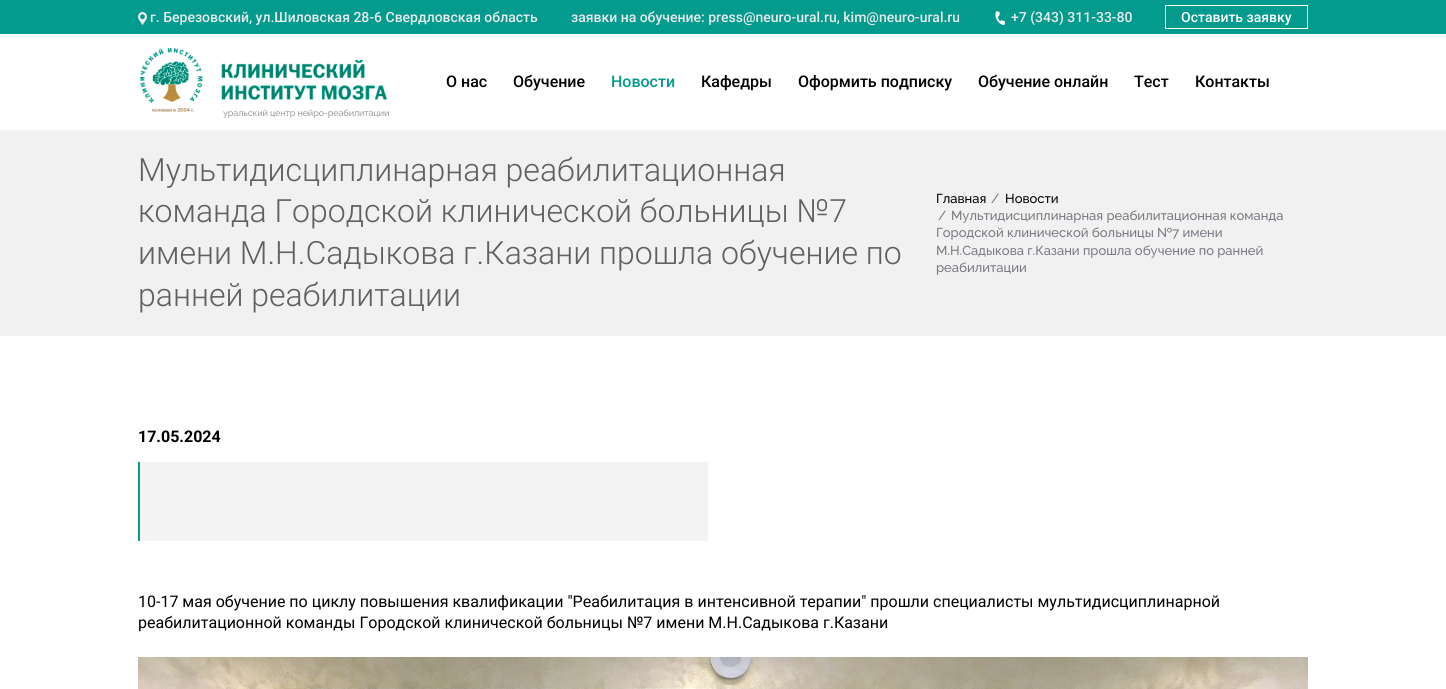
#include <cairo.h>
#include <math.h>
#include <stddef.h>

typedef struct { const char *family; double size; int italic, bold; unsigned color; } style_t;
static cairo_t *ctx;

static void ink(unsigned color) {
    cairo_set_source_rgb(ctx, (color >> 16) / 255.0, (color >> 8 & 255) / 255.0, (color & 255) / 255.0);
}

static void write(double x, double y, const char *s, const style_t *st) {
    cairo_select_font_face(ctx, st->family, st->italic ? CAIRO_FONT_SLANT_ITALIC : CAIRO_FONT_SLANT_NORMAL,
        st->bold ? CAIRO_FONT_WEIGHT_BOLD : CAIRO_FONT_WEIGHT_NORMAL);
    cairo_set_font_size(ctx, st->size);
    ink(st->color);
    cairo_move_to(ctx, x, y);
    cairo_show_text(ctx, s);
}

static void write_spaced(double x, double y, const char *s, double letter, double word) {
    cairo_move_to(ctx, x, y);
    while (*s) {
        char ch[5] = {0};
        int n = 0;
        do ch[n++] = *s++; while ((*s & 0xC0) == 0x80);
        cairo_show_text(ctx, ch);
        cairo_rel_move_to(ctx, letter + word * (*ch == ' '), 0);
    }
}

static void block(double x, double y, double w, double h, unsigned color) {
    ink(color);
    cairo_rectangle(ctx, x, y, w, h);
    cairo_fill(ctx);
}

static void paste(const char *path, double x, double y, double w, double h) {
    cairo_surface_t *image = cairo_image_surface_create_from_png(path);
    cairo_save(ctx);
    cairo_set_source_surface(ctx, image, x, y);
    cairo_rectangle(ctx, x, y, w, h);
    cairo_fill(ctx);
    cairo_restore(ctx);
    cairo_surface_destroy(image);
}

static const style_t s1 = {"Roboto Medium", 14, 0, 0, 0xebebeb};
static const style_t s2 = {"Roboto Medium", 14, 0, 0, 0xffffff};
static const style_t s3 = {"Roboto Medium", 16, 0, 0, 0x000000};
static const style_t s4 = {"Roboto Medium", 16, 0, 0, 0x029b8e};
static const style_t s5 = {"Roboto Light", 32, 0, 0, 0x606060};
static const style_t s6 = {"Raleway Thin", 13, 0, 0, 0x000000};
static const style_t s7 = {"Raleway Thin", 13, 0, 0, 0x797a83};
static const style_t s8 = {"Roboto", 16, 0, 1, 0x000000};
static const style_t s9 = {"Roboto", 16, 0, 0, 0x000000};

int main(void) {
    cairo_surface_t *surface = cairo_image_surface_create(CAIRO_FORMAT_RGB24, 1446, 689);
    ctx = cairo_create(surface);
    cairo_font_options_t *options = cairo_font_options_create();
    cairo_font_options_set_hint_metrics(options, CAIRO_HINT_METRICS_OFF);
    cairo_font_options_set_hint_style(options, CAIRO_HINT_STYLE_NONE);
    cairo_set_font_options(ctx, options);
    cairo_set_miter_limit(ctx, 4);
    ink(0xffffff);
    cairo_paint(ctx);
    block(0, 0, 1446, 34, 0x029b8e);
    paste("pic1.png", 138, 12, 9, 13);
    write(150, 22, "г. Березовский, ул.Шиловская 28-6 Свердловская область", &s1);
    write(571, 22, "заявки на обучение: press@neuro-ural.ru, kim@neuro-ural.ru", &s1);
    paste("pic2.png", 995, 11, 11, 15);
    write(1011, 22, "+7 (343) 311-33-80", &s1);
    cairo_rectangle(ctx, 1165.5, 5.5, 142, 23);
    ink(0xffffff);
    cairo_set_line_width(ctx, 1);
    cairo_stroke(ctx);
    write(1181, 22, "Оставить заявку", &s2);
    write(446, 87, "О нас", &s3);
    write(513, 87, "Обучение", &s3);
    write(611, 87, "Новости", &s4);
    write(701, 87, "Кафедры", &s3);
    write(798, 87, "Оформить подписку", &s3);
    write(978, 87, "Обучение онлайн", &s3);
    write(1134, 87, "Тест", &s3);
    write(1195, 87, "Контакты", &s3);
    paste("pic3.png", 140, 48, 247, 64);
    cairo_select_font_face(ctx, "Raleway Thin", CAIRO_FONT_SLANT_NORMAL, CAIRO_FONT_WEIGHT_NORMAL);
    cairo_set_font_size(ctx, 9);
    ink(0x9d9c9c);
    write_spaced(223, 116, "уральский центр нейро-реабилитации", -0.1, 0);
    block(0, 130, 1446, 206, 0xf1f1f1);
    write(138, 181, "Мультидисциплинарная реабилитационная", &s5);
    write(138, 222, "команда Городской клинической больницы №7", &s5);
    write(138, 264, "имени М.Н.Садыкова г.Казани прошла обучение по", &s5);
    write(138, 306, "ранней реабилитации", &s5);
    write(936, 203, "Главная", &s6);
    write(991, 203, "/", &s7);
    write(1005, 203, "Новости", &s6);
    write(938, 220, "/", &s7);
    write(951, 220, "Мультидисциплинарная реабилитационная команда", &s7);
    write(936, 237, "Городской клинической больницы №7 имени", &s7);
    write(936, 255, "М.Н.Садыкова г.Казани прошла обучение по ранней", &s7);
    write(936, 272, "реабилитации", &s7);
    write(138, 442, "17.05.2024", &s8);
    block(140, 462, 568, 79, 0xf3f3f3);
    block(138, 462, 2, 79, 0x029b8e);
    write(138, 607, "10-17 мая обучение по циклу повышения квалификации \"Реабилитация в интенсивной терапии\" прошли специалисты мультидисциплинарной", &s9);
    write(138, 628, "реабилитационной команды Городской клинической больницы №7 имени М.Н.Садыкова г.Казани", &s9);
    paste("pic4.png", 138, 657, 1170, 32);
    cairo_surface_write_to_png(surface, "screenshot.png");
    cairo_font_options_destroy(options);
    cairo_destroy(ctx);
    cairo_surface_destroy(surface);
    return 0;
}
